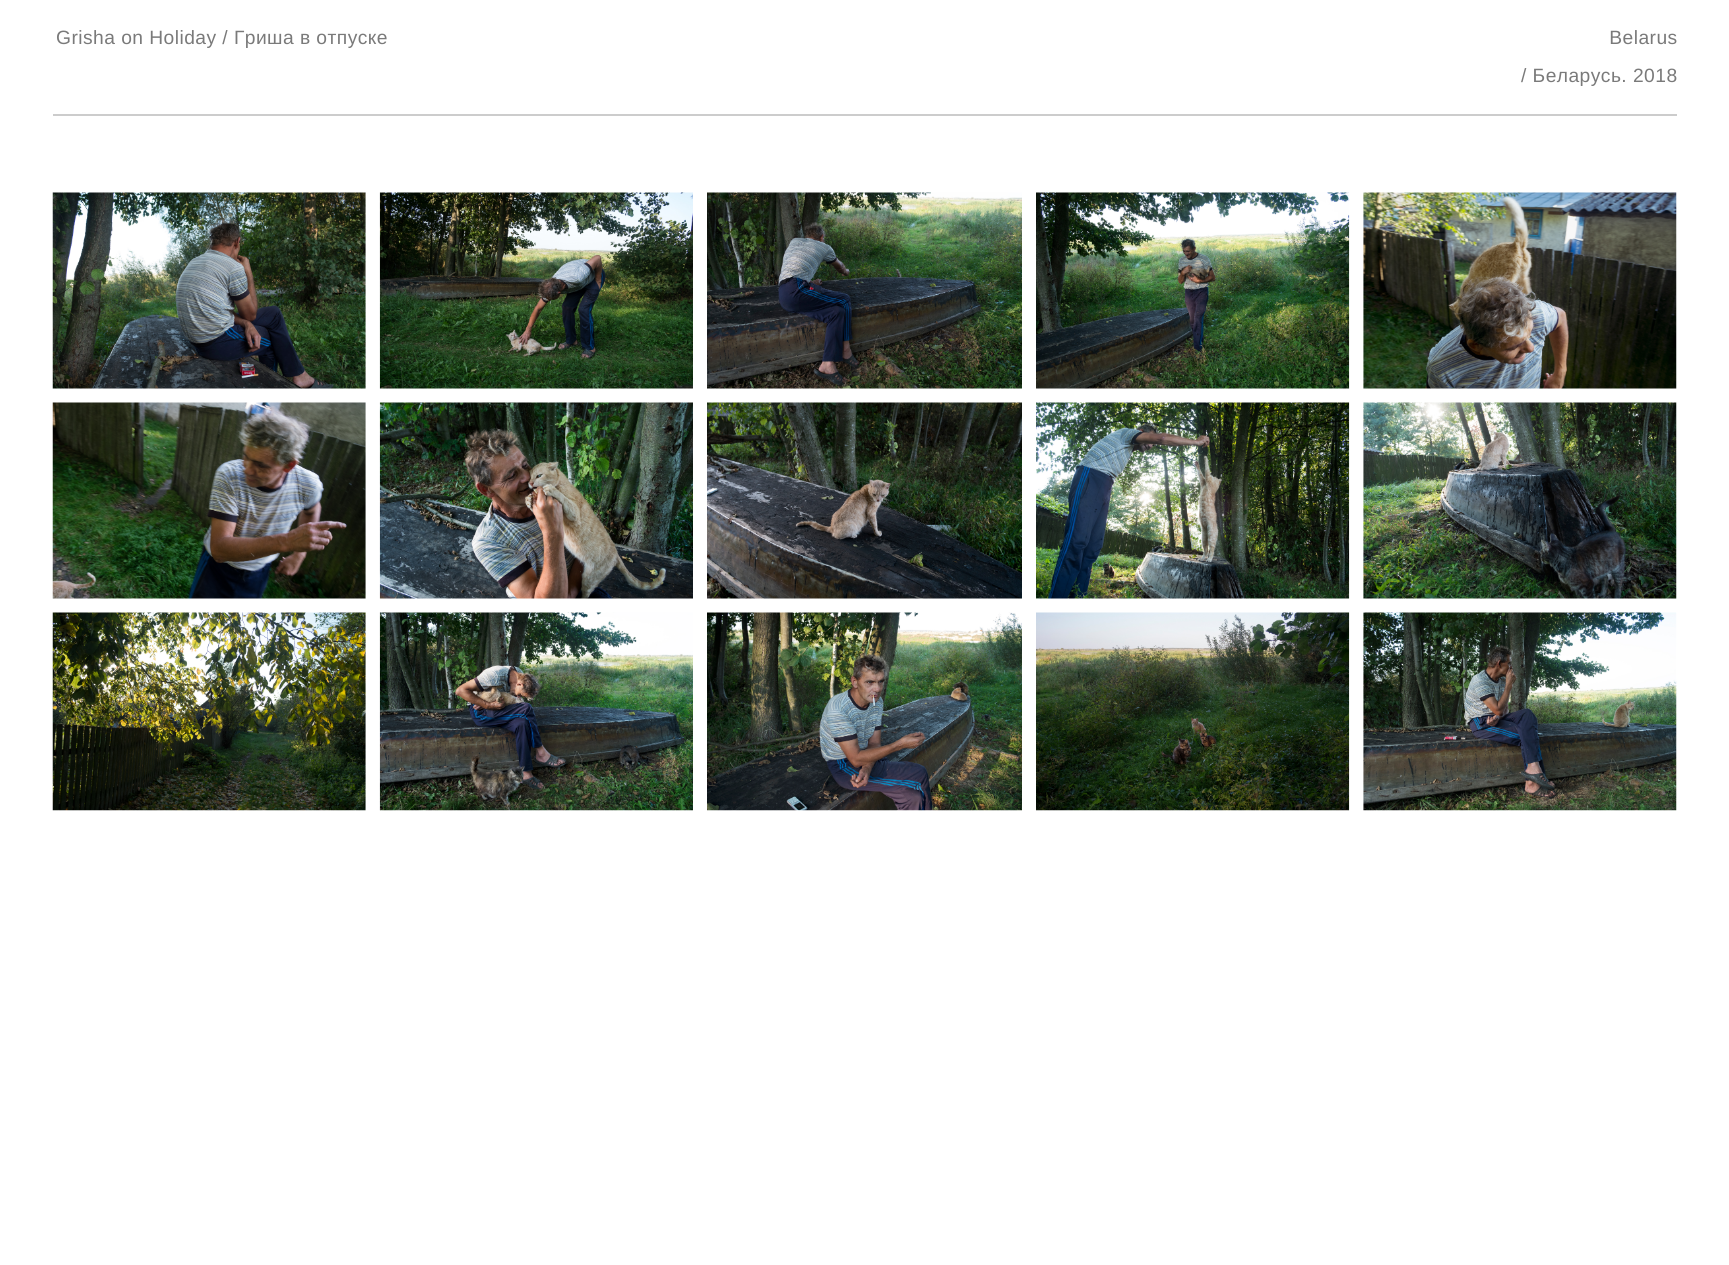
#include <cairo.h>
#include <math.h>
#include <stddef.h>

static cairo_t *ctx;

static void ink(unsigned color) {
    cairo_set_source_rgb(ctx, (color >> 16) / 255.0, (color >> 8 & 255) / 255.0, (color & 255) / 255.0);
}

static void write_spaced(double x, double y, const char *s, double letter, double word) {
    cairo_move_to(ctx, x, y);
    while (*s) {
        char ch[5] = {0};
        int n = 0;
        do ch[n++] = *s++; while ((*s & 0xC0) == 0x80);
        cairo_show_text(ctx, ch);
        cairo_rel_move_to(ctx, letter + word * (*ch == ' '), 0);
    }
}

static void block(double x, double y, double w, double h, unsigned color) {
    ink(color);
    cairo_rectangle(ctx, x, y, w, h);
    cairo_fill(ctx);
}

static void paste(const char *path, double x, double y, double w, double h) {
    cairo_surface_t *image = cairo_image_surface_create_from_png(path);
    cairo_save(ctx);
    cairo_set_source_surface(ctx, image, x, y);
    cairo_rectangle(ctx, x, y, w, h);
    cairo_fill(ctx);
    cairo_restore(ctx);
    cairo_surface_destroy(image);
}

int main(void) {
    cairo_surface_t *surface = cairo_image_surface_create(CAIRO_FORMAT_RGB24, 1729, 1265);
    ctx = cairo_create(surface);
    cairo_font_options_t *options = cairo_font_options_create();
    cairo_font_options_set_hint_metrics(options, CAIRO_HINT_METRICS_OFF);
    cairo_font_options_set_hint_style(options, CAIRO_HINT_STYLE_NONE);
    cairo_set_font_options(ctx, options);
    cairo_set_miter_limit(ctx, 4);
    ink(0xffffff);
    cairo_paint(ctx);
    cairo_select_font_face(ctx, "Liberation Sans", CAIRO_FONT_SLANT_NORMAL, CAIRO_FONT_WEIGHT_NORMAL);
    cairo_set_font_size(ctx, 19.25);
    ink(0x7a7a7a);
    write_spaced(56, 44, "Grisha on Holiday / Гриша в отпуске                                                                                                                                                                                                                   Belarus", 0.44, 0);
    write_spaced(1521, 82, "/ Беларусь. 2018", 0.44, 0);
    block(53, 114, 1624, 2, 0xcccccc);
    paste("pic1.png", 52, 192, 314, 197);
    paste("pic2.png", 379, 192, 314, 197);
    paste("pic3.png", 707, 192, 315, 197);
    paste("pic4.png", 1036, 192, 314, 197);
    paste("pic5.png", 1363, 192, 314, 197);
    paste("pic6.png", 52, 402, 314, 197);
    paste("pic7.png", 379, 402, 314, 197);
    paste("pic8.png", 707, 402, 315, 197);
    paste("pic9.png", 1036, 402, 314, 197);
    paste("pic10.png", 1363, 402, 314, 197);
    paste("pic11.png", 52, 612, 314, 199);
    paste("pic12.png", 379, 612, 314, 199);
    paste("pic13.png", 707, 612, 315, 199);
    paste("pic14.png", 1036, 612, 314, 199);
    paste("pic15.png", 1363, 612, 314, 199);
    cairo_surface_write_to_png(surface, "screenshot.png");
    cairo_font_options_destroy(options);
    cairo_destroy(ctx);
    cairo_surface_destroy(surface);
    return 0;
}
